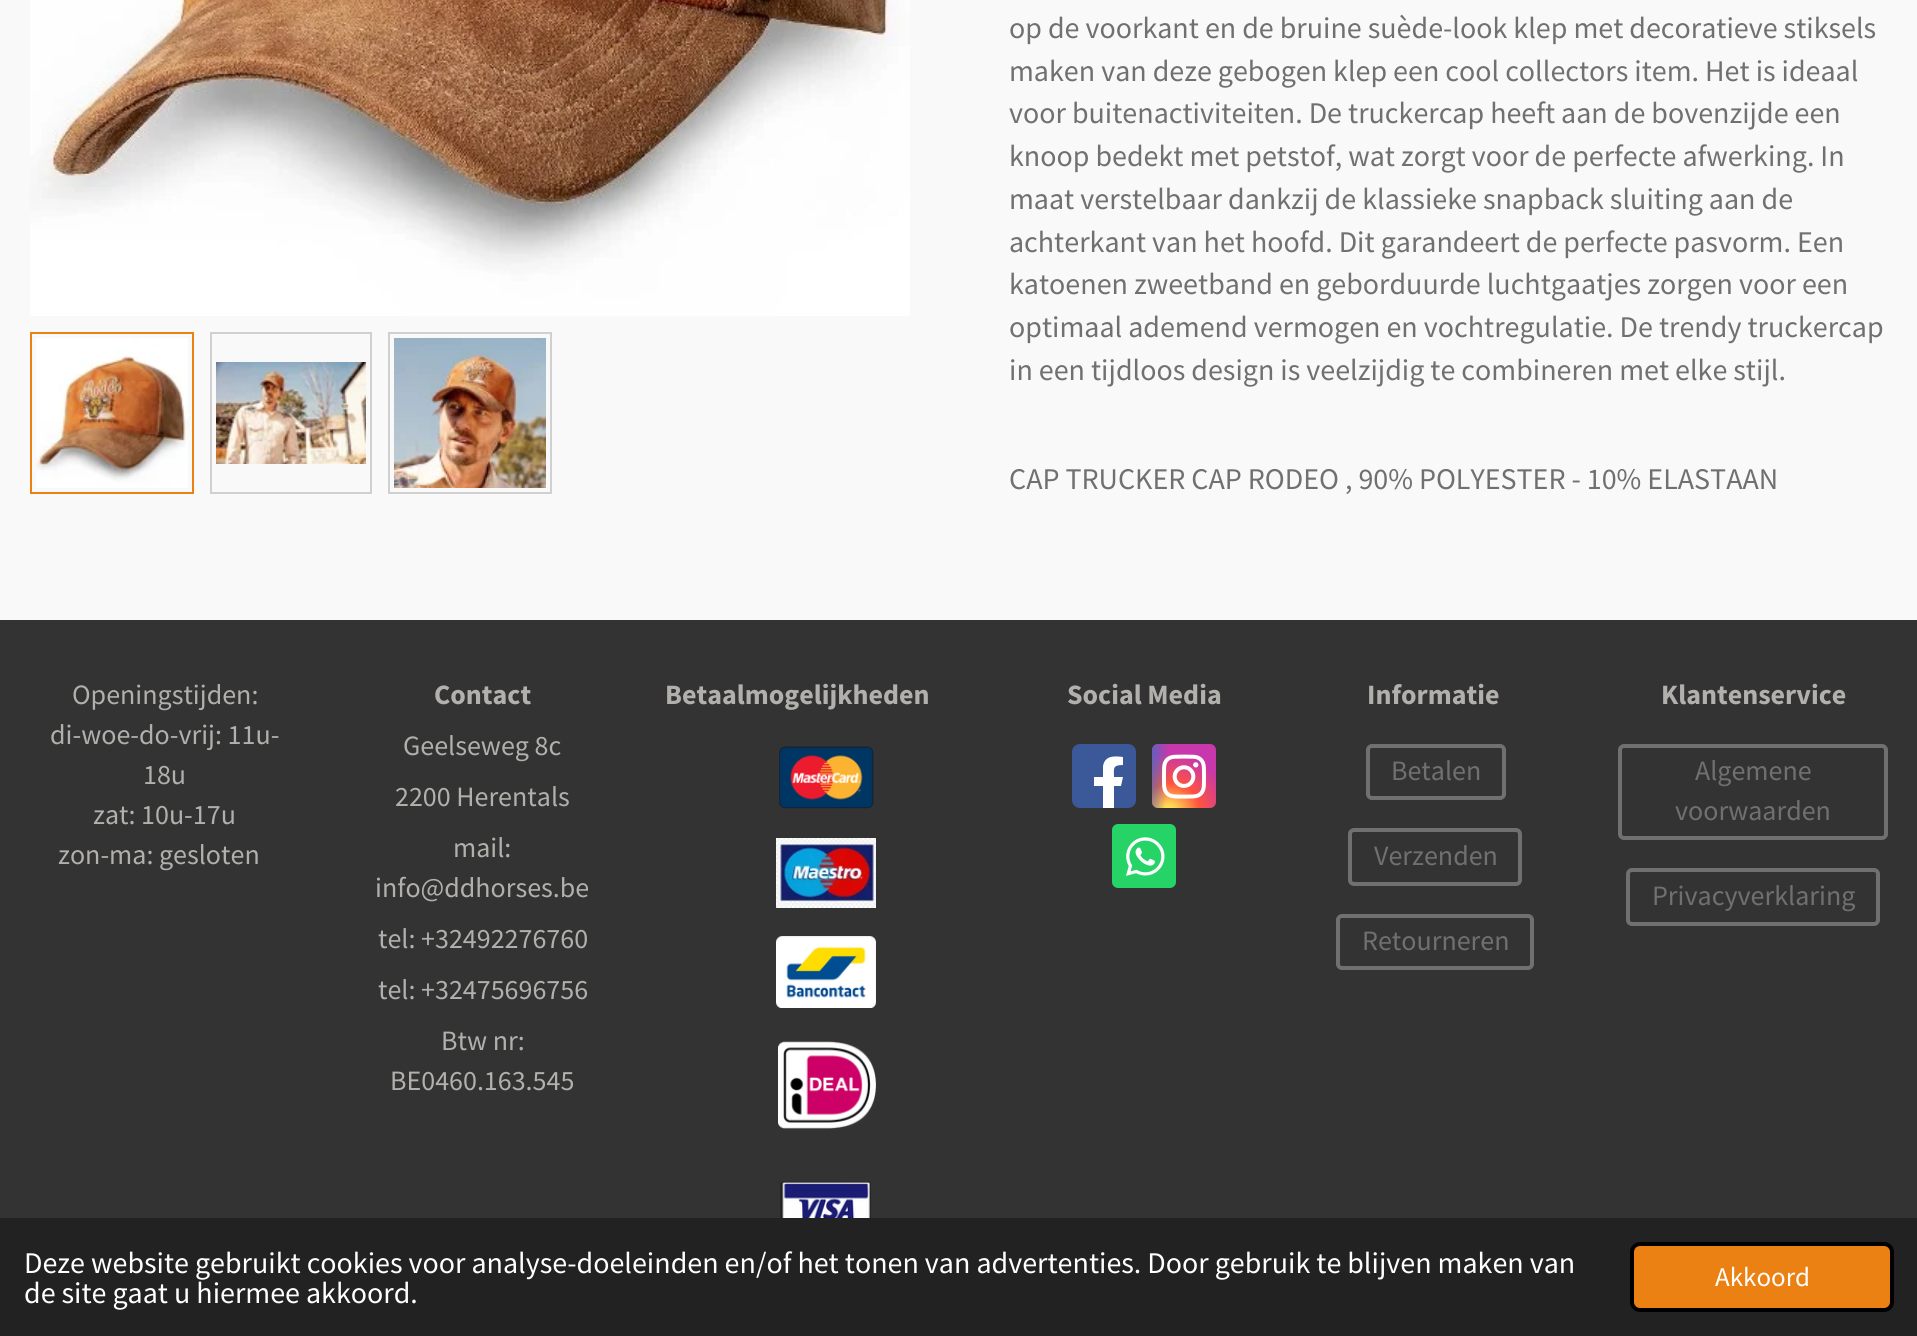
#include <cairo.h>
#include <math.h>
#include <stddef.h>

typedef struct { const char *family; double size; int italic, bold; unsigned color; } style_t;
static cairo_t *ctx;

static void ink(unsigned color) {
    cairo_set_source_rgb(ctx, (color >> 16) / 255.0, (color >> 8 & 255) / 255.0, (color & 255) / 255.0);
}

static void write(double x, double y, const char *s, const style_t *st) {
    cairo_select_font_face(ctx, st->family, st->italic ? CAIRO_FONT_SLANT_ITALIC : CAIRO_FONT_SLANT_NORMAL,
        st->bold ? CAIRO_FONT_WEIGHT_BOLD : CAIRO_FONT_WEIGHT_NORMAL);
    cairo_set_font_size(ctx, st->size);
    ink(st->color);
    cairo_move_to(ctx, x, y);
    cairo_show_text(ctx, s);
}

static void block(double x, double y, double w, double h, unsigned color) {
    ink(color);
    cairo_rectangle(ctx, x, y, w, h);
    cairo_fill(ctx);
}

static void round_path(double x, double y, double w, double h, double r) {
    cairo_new_sub_path(ctx);
    cairo_arc(ctx, x + w - r, y + h - r, r, 0, M_PI / 2);
    cairo_arc(ctx, x + r, y + h - r, r, M_PI / 2, M_PI);
    cairo_arc(ctx, x + r, y + r, r, M_PI, 1.5 * M_PI);
    cairo_arc(ctx, x + w - r, y + r, r, 1.5 * M_PI, 2 * M_PI);
    cairo_close_path(ctx);
}

static void paste(const char *path, double x, double y, double w, double h) {
    cairo_surface_t *image = cairo_image_surface_create_from_png(path);
    cairo_save(ctx);
    cairo_set_source_surface(ctx, image, x, y);
    cairo_rectangle(ctx, x, y, w, h);
    cairo_fill(ctx);
    cairo_restore(ctx);
    cairo_surface_destroy(image);
}

static const style_t s1 = {"Source Sans Pro", 30, 0, 0, 0x707070};
static const style_t s2 = {"Source Sans Pro", 28, 0, 0, 0xb1b0ac};
static const style_t s3 = {"Source Sans Pro", 28, 0, 1, 0xb1b0ac};
static const style_t s4 = {"Source Sans Pro", 28, 0, 0, 0x707070};
static const style_t s5 = {"Source Sans Pro", 30, 0, 0, 0xffffff};
static const style_t s6 = {"Source Sans Pro", 27, 0, 0, 0xffffff};

int main(void) {
    cairo_surface_t *surface = cairo_image_surface_create(CAIRO_FORMAT_RGB24, 1917, 1336);
    ctx = cairo_create(surface);
    cairo_font_options_t *options = cairo_font_options_create();
    cairo_font_options_set_hint_metrics(options, CAIRO_HINT_METRICS_OFF);
    cairo_font_options_set_hint_style(options, CAIRO_HINT_STYLE_NONE);
    cairo_set_font_options(ctx, options);
    cairo_set_miter_limit(ctx, 4);
    cairo_pattern_t *gradient;
    ink(0x333333);
    cairo_paint(ctx);
    block(0, 0, 1917, 620, 0xf9f9f9);
    paste("pic1.png", 30, 0, 880, 316);
    cairo_rectangle(ctx, 31, 333, 162, 160);
    ink(0xeb8113);
    cairo_stroke(ctx);
    paste("pic2.png", 36, 338, 152, 150);
    cairo_rectangle(ctx, 211, 333, 160, 160);
    ink(0xd0d0d0);
    cairo_stroke(ctx);
    paste("pic3.png", 216, 362, 150, 102);
    cairo_rectangle(ctx, 389, 333, 162, 160);
    cairo_stroke(ctx);
    paste("pic4.png", 394, 338, 152, 150);
    write(1009, 38, "op de voorkant en de bruine suède-look klep met decoratieve stiksels", &s1);
    write(1009, 81, "maken van deze gebogen klep een cool collectors item. Het is ideaal", &s1);
    write(1009, 123, "voor buitenactiviteiten. De truckercap heeft aan de bovenzijde een", &s1);
    write(1009, 166, "knoop bedekt met petstof, wat zorgt voor de perfecte afwerking. In", &s1);
    write(1009, 209, "maat verstelbaar dankzij de klassieke snapback sluiting aan de", &s1);
    write(1009, 252, "achterkant van het hoofd. Dit garandeert de perfecte pasvorm. Een", &s1);
    write(1009, 294, "katoenen zweetband en geborduurde luchtgaatjes zorgen voor een", &s1);
    write(1009, 337, "optimaal ademend vermogen en vochtregulatie. De trendy truckercap", &s1);
    write(1009, 380, "in een tijdloos design is veelzijdig te combineren met elke stijl.", &s1);
    write(1009, 489, "CAP TRUCKER CAP RODEO , 90% POLYESTER - 10% ELASTAAN", &s1);
    write(72, 704, "Openingstijden:", &s2);
    write(50, 744, "di-woe-do-vrij: 11u-", &s2);
    write(143, 784, "18u", &s2);
    write(93, 824, "zat: 10u-17u", &s2);
    write(58, 864, "zon-ma: gesloten", &s2);
    write(434, 704, "Contact", &s3);
    write(403, 755, "Geelseweg 8c", &s2);
    write(395, 806, "2200 Herentals", &s2);
    write(453, 857, "mail:", &s2);
    write(375, 897, "info@ddhorses.be", &s2);
    write(378, 948, "tel: +32492276760", &s2);
    write(378, 999, "tel: +32475696756", &s2);
    write(441, 1050, "Btw nr:", &s2);
    write(390, 1090, "BE0460.163.545", &s2);
    write(665, 704, "Betaalmogelijkheden", &s3);
    paste("pic5.png", 779, 746, 95, 63);
    paste("pic6.png", 776, 838, 100, 70);
    paste("pic7.png", 776, 936, 100, 72);
    paste("pic8.png", 778, 1041, 98, 88);
    paste("pic9.png", 780, 1181, 91, 37);
    write(1067, 704, "Social Media", &s3);
    ink(0x3b5998);
    round_path(1072, 744, 64, 64, 8);
    cairo_fill(ctx);
    ink(0xffffff);
    cairo_new_path(ctx);
    cairo_move_to(ctx, 1121, 786);
    cairo_line_to(ctx, 1114, 786);
    cairo_line_to(ctx, 1114, 808);
    cairo_line_to(ctx, 1103, 808);
    cairo_line_to(ctx, 1103, 786);
    cairo_line_to(ctx, 1094, 786);
    cairo_line_to(ctx, 1094, 777);
    cairo_line_to(ctx, 1103, 777);
    cairo_line_to(ctx, 1103, 766);
    cairo_curve_to(ctx, 1105, 755, 1115, 756, 1123, 757);
    cairo_line_to(ctx, 1123, 765);
    cairo_curve_to(ctx, 1112, 765, 1114, 769, 1114, 777);
    cairo_line_to(ctx, 1123, 777);
    cairo_close_path(ctx);
    cairo_fill(ctx);
    gradient = cairo_pattern_create_radial(0, 0, 0, 0, 0, 1);
    cairo_pattern_set_matrix(gradient, &(cairo_matrix_t){1.0 / 62, 0, 0, 1.0 / 58, -1.0 * 1169 / 62, -1.0 * 812 / 58});
    cairo_pattern_add_color_stop_rgba(gradient, 0, 1, 0.867, 0.333, 1);
    cairo_pattern_add_color_stop_rgba(gradient, 0.1, 1, 0.867, 0.333, 1);
    cairo_pattern_add_color_stop_rgba(gradient, 0.5, 1, 0.329, 0.243, 1);
    cairo_pattern_add_color_stop_rgba(gradient, 1, 0.784, 0.216, 0.671, 1);
    cairo_set_source(ctx, gradient);
    cairo_pattern_destroy(gradient);
    round_path(1152, 744, 64, 64, 6);
    cairo_fill(ctx);
    gradient = cairo_pattern_create_radial(0, 0, 0, 0, 0, 1);
    cairo_pattern_set_matrix(gradient, &(cairo_matrix_t){1.0 / 28, 0, 0, 1.0 / 115, -1.0 * 1141 / 28, -1.0 * 749 / 115});
    cairo_pattern_add_color_stop_rgba(gradient, 0, 0.216, 0.443, 0.784, 1);
    cairo_pattern_add_color_stop_rgba(gradient, 0.13, 0.216, 0.443, 0.784, 1);
    cairo_pattern_add_color_stop_rgba(gradient, 1, 0.216, 0.443, 0.784, 0);
    cairo_set_source(ctx, gradient);
    cairo_pattern_destroy(gradient);
    round_path(1152, 744, 64, 64, 6);
    cairo_fill(ctx);
    paste("pic10.png", 1162, 754, 44, 45);
    ink(0x25d366);
    round_path(1112, 824, 64, 64, 6);
    cairo_fill(ctx);
    paste("pic11.png", 1126, 837, 39, 39);
    write(1367, 704, "Informatie", &s3);
    round_path(1368, 746, 136, 52, 4);
    ink(0x707070);
    cairo_set_line_width(ctx, 4);
    cairo_stroke(ctx);
    write(1391, 780, "Betalen", &s4);
    round_path(1350, 830, 170, 54, 4);
    cairo_stroke(ctx);
    write(1374, 865, "Verzenden", &s4);
    round_path(1338, 916, 194, 52, 4);
    cairo_stroke(ctx);
    write(1362, 950, "Retourneren", &s4);
    write(1661, 704, "Klantenservice", &s3);
    round_path(1620, 746, 266, 92, 4);
    ink(0x707070);
    cairo_stroke(ctx);
    write(1695, 780, "Algemene", &s4);
    write(1675, 820, "voorwaarden", &s4);
    round_path(1628, 870, 250, 54, 4);
    cairo_stroke(ctx);
    write(1652, 905, "Privacyverklaring", &s4);
    block(0, 1218, 1917, 118, 0x222222);
    write(24, 1273, "Deze website gebruikt cookies voor analyse-doeleinden en/of het tonen van advertenties. Door gebruik te blijven maken van", &s5);
    write(24, 1303, "de site gaat u hiermee akkoord.", &s5);
    ink(0xeb8113);
    round_path(1632, 1244, 260, 66, 8);
    cairo_fill_preserve(ctx);
    ink(0x000000);
    cairo_stroke(ctx);
    write(1715, 1286, "Akkoord", &s6);
    cairo_surface_write_to_png(surface, "screenshot.png");
    cairo_font_options_destroy(options);
    cairo_destroy(ctx);
    cairo_surface_destroy(surface);
    return 0;
}
